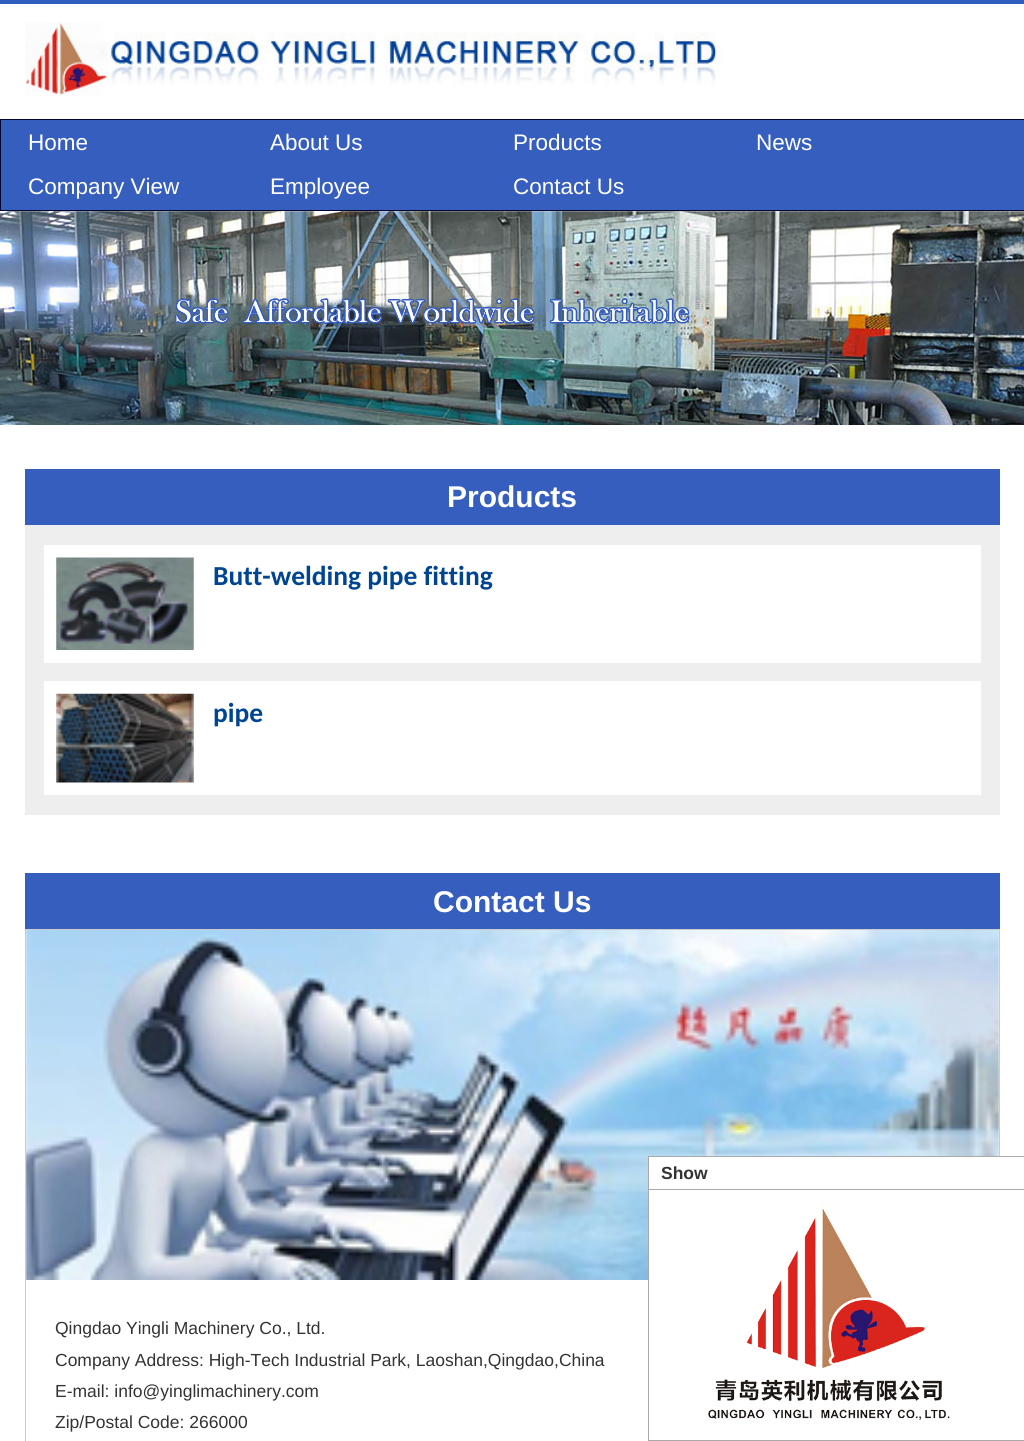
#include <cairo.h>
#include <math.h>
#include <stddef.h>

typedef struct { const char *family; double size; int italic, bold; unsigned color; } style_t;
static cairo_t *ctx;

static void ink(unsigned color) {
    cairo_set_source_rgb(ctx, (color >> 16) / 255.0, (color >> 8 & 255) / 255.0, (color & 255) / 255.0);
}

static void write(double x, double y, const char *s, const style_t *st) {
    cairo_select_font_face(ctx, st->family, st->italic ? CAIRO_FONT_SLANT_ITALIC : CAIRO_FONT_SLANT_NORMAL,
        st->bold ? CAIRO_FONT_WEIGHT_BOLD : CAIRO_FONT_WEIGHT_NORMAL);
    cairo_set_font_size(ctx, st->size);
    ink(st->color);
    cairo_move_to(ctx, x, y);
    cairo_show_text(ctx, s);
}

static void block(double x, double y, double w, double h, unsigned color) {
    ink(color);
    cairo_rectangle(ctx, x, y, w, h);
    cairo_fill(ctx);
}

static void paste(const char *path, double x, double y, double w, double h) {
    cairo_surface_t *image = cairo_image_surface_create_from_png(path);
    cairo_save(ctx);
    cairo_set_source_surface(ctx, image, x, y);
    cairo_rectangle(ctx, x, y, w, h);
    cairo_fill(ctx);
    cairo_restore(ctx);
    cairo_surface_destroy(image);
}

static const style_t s1 = {"Liberation Sans", 22.5, 0, 0, 0xffffff};
static const style_t s2 = {"Liberation Sans", 30, 0, 1, 0xffffff};
static const style_t s3 = {"Carlito", 27.5, 0, 1, 0x004592};
static const style_t s4 = {"Liberation Sans", 17.5, 0, 0, 0x333333};
static const style_t s5 = {"Liberation Sans", 17.5, 0, 1, 0x333333};

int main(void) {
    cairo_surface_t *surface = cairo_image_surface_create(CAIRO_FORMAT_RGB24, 1024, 1441);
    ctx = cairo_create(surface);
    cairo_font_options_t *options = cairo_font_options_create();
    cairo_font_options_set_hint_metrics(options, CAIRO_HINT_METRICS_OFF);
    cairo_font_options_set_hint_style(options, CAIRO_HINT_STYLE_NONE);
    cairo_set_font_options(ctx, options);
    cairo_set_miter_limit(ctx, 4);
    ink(0xffffff);
    cairo_paint(ctx);
    block(0, 0, 1024, 4, 0x2f5ebf);
    paste("pic1.png", 25, 22, 700, 74);
    ink(0x365ebf);
    cairo_rectangle(ctx, 0.5, 119.5, 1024, 91);
    cairo_fill_preserve(ctx);
    ink(0x000733);
    cairo_set_line_width(ctx, 1);
    cairo_stroke(ctx);
    write(28, 150, "Home", &s1);
    write(270, 150, "About Us", &s1);
    write(513, 150, "Products", &s1);
    write(756, 150, "News", &s1);
    write(28, 194, "Company View", &s1);
    write(270, 194, "Employee", &s1);
    write(513, 194, "Contact Us", &s1);
    paste("pic2.png", 0, 211, 1024, 214);
    block(25, 469, 975, 56, 0x365ebf);
    write(447, 507, "Products", &s2);
    block(25, 525, 975, 290, 0xeeeeee);
    block(44, 545, 937, 118, 0xffffff);
    paste("pic3.png", 56, 557, 138, 93);
    write(213, 585, "Butt-welding pipe fitting", &s3);
    block(44, 681, 937, 114, 0xffffff);
    paste("pic4.png", 56, 693, 138, 90);
    write(213, 722, "pipe", &s3);
    block(25, 873, 975, 56, 0x365ebf);
    write(433, 912, "Contact Us", &s2);
    cairo_rectangle(ctx, 25.5, 929.5, 974, 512);
    ink(0xcccccc);
    cairo_stroke(ctx);
    paste("pic5.png", 26, 930, 973, 350);
    write(55, 1334, "Qingdao Yingli Machinery Co., Ltd.", &s4);
    write(55, 1366, "Company Address: High-Tech Industrial Park, Laoshan,Qingdao,China", &s4);
    write(55, 1397, "E-mail: info@yinglimachinery.com", &s4);
    write(55, 1428, "Zip/Postal Code: 266000", &s4);
    block(649, 1157, 351, 283, 0xffffff);
    cairo_rectangle(ctx, 648.5, 1156.5, 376, 284);
    ink(0xaaaaaa);
    cairo_stroke(ctx);
    block(649, 1189, 375, 1, 0xaaaaaa);
    write(661, 1179, "Show", &s5);
    paste("pic6.png", 708, 1200, 242, 220);
    cairo_surface_write_to_png(surface, "screenshot.png");
    cairo_font_options_destroy(options);
    cairo_destroy(ctx);
    cairo_surface_destroy(surface);
    return 0;
}
